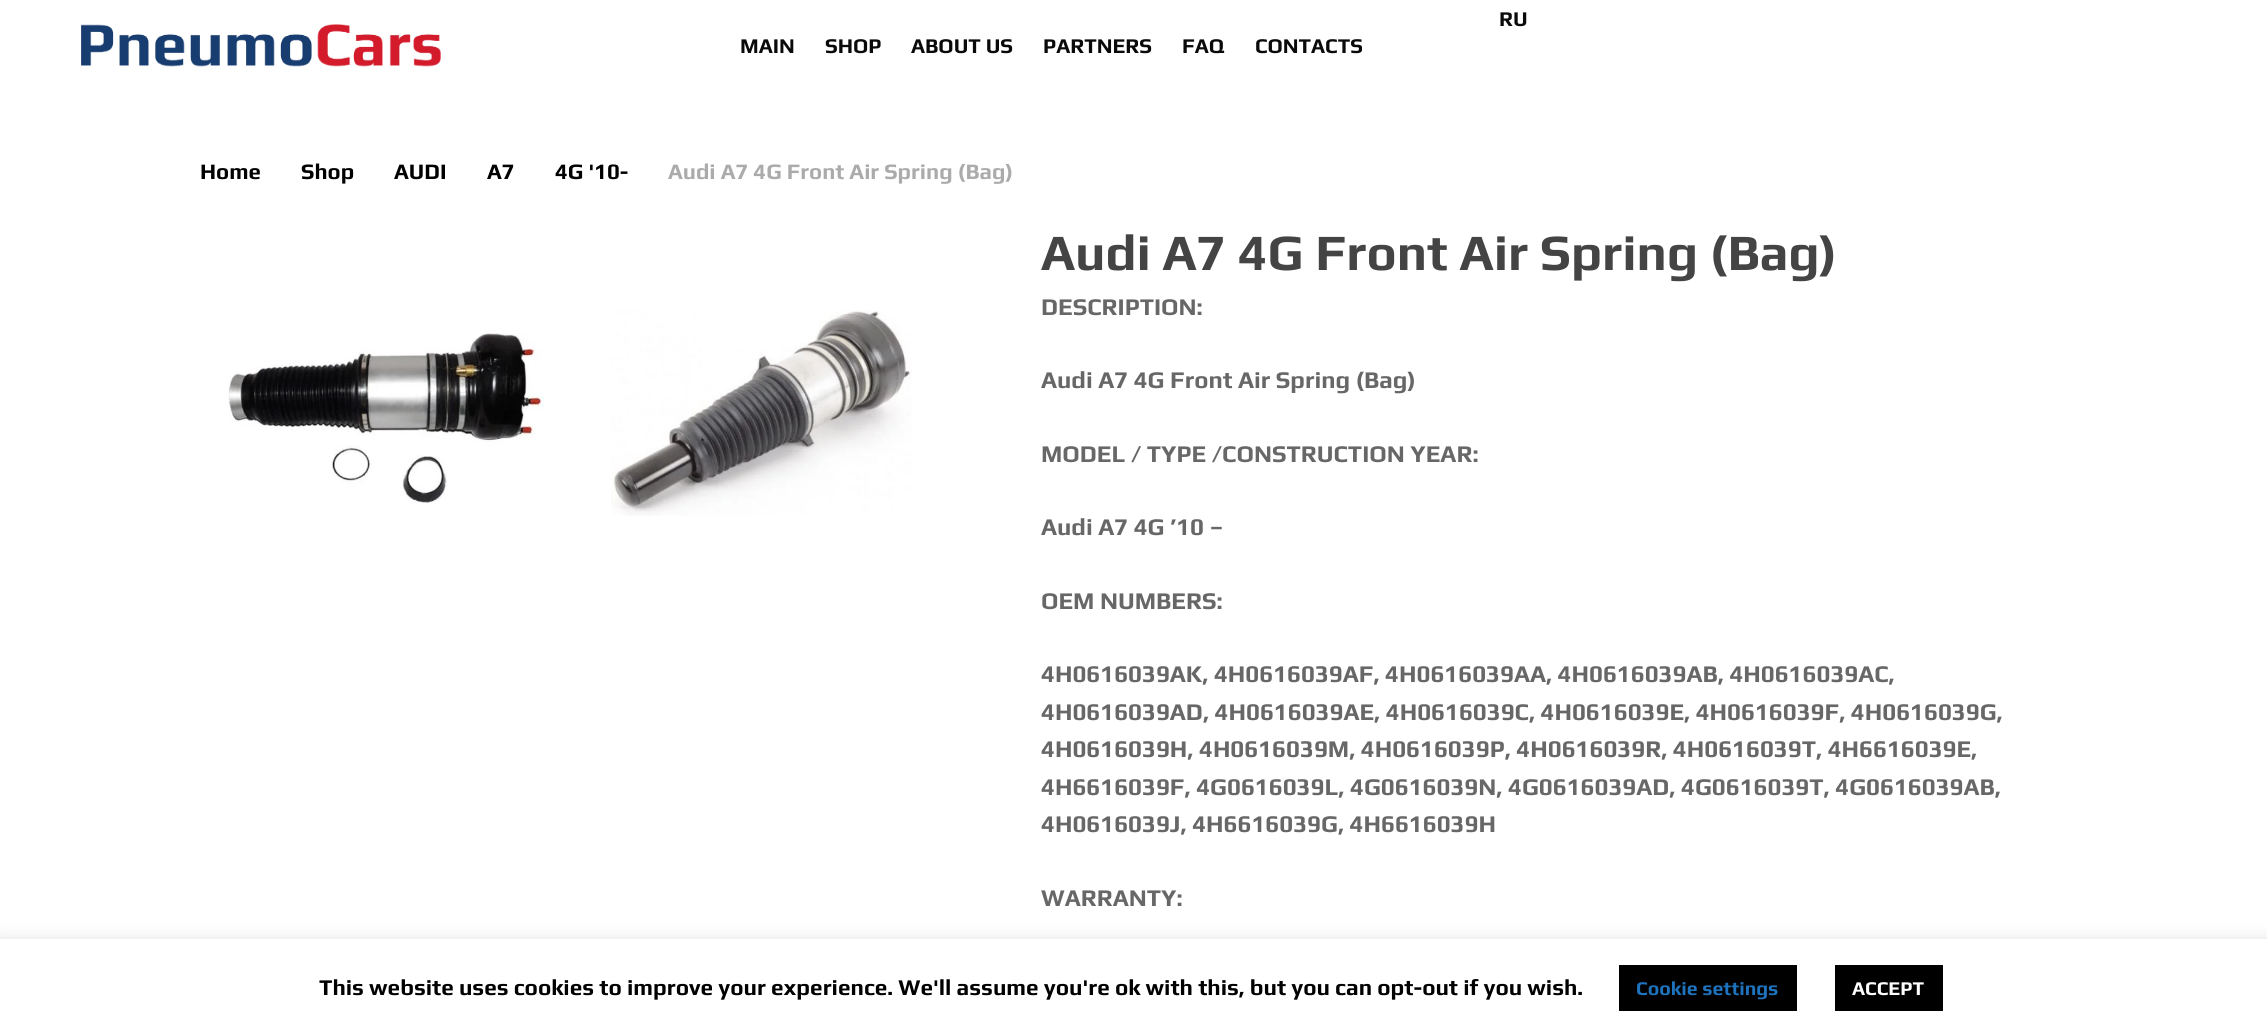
#include <cairo.h>
#include <math.h>
#include <stddef.h>

typedef struct { const char *family; double size; int italic, bold; unsigned color; } style_t;
static cairo_t *ctx;

static void ink(unsigned color) {
    cairo_set_source_rgb(ctx, (color >> 16) / 255.0, (color >> 8 & 255) / 255.0, (color & 255) / 255.0);
}

static void write(double x, double y, const char *s, const style_t *st) {
    cairo_select_font_face(ctx, st->family, st->italic ? CAIRO_FONT_SLANT_ITALIC : CAIRO_FONT_SLANT_NORMAL,
        st->bold ? CAIRO_FONT_WEIGHT_BOLD : CAIRO_FONT_WEIGHT_NORMAL);
    cairo_set_font_size(ctx, st->size);
    ink(st->color);
    cairo_move_to(ctx, x, y);
    cairo_show_text(ctx, s);
}

static void block(double x, double y, double w, double h, unsigned color) {
    ink(color);
    cairo_rectangle(ctx, x, y, w, h);
    cairo_fill(ctx);
}

static void round_path(double x, double y, double w, double h, double r) {
    cairo_new_sub_path(ctx);
    cairo_arc(ctx, x + w - r, y + h - r, r, 0, M_PI / 2);
    cairo_arc(ctx, x + r, y + h - r, r, M_PI / 2, M_PI);
    cairo_arc(ctx, x + r, y + r, r, M_PI, 1.5 * M_PI);
    cairo_arc(ctx, x + w - r, y + r, r, 1.5 * M_PI, 2 * M_PI);
    cairo_close_path(ctx);
}

static void blur_box(double x, double y, double w, double h, double r, double blur, double alpha) {
    cairo_push_group_with_content(ctx, CAIRO_CONTENT_ALPHA);
    cairo_set_operator(ctx, CAIRO_OPERATOR_SOURCE);
    for (int i = 15; i >= -15 && fmin(w, h) + blur * i / 3 > 0; i -= 2) {
        double e = blur * i / 6;
        cairo_set_source_rgba(ctx, 0, 0, 0, alpha * erfc((i - 1) / 8.5) / 2);
        round_path(x - e, y - e, w + 2 * e, h + 2 * e, fmax(0, fmin(r + e + blur * .6, fmin(w, h) / 2 + e)));
        cairo_fill(ctx);
    }
    cairo_pattern_t *soft = cairo_pop_group(ctx);
    cairo_mask(ctx, soft);
    cairo_pattern_destroy(soft);
}

static void paste(const char *path, double x, double y, double w, double h) {
    cairo_surface_t *image = cairo_image_surface_create_from_png(path);
    cairo_save(ctx);
    cairo_set_source_surface(ctx, image, x, y);
    cairo_rectangle(ctx, x, y, w, h);
    cairo_fill(ctx);
    cairo_restore(ctx);
    cairo_surface_destroy(image);
}

static const style_t s1 = {"Play", 21, 0, 1, 0x0a0a0a};
static const style_t s2 = {"Play", 22.1, 0, 1, 0x000000};
static const style_t s3 = {"Play", 22.1, 0, 1, 0xababab};
static const style_t s4 = {"Play", 51, 0, 1, 0x444444};
static const style_t s5 = {"Play", 24, 0, 1, 0x676767};
static const style_t s6 = {"Play", 22.5, 0, 1, 0x000000};
static const style_t s7 = {"Play", 19.5, 0, 1, 0x1e73be};
static const style_t s8 = {"Play", 19.5, 0, 1, 0xffffff};

int main(void) {
    cairo_surface_t *surface = cairo_image_surface_create(CAIRO_FORMAT_RGB24, 2267, 1036);
    ctx = cairo_create(surface);
    cairo_font_options_t *options = cairo_font_options_create();
    cairo_font_options_set_hint_metrics(options, CAIRO_HINT_METRICS_OFF);
    cairo_font_options_set_hint_style(options, CAIRO_HINT_STYLE_NONE);
    cairo_set_font_options(ctx, options);
    cairo_set_miter_limit(ctx, 4);
    ink(0xffffff);
    cairo_paint(ctx);
    paste("pic1.png", 81, 24, 360, 43);
    write(1499, 26, "RU", &s1);
    write(740, 53, "MAIN", &s1);
    write(825, 53, "SHOP", &s1);
    write(911, 53, "ABOUT US", &s1);
    write(1043, 53, "PARTNERS", &s1);
    write(1182, 53, "FAQ", &s1);
    write(1255, 53, "CONTACTS", &s1);
    write(200, 179, "Home", &s2);
    write(301, 179, "Shop", &s2);
    write(394, 179, "AUDI", &s2);
    write(487, 179, "A7", &s2);
    write(555, 179, "4G '10-", &s2);
    write(668, 179, "Audi A7 4G Front Air Spring (Bag)", &s3);
    paste("pic2.png", 228, 333, 316, 171);
    paste("pic3.png", 611, 310, 301, 206);
    write(1041, 270, "Audi A7 4G Front Air Spring (Bag)", &s4);
    write(1041, 315, "DESCRIPTION:", &s5);
    write(1041, 388, "Audi A7 4G Front Air Spring (Bag)", &s5);
    write(1041, 462, "MODEL / TYPE /CONSTRUCTION YEAR:", &s5);
    write(1041, 535, "Audi A7 4G ’10 –", &s5);
    write(1041, 609, "OEM NUMBERS:", &s5);
    write(1041, 682, "4H0616039AK, 4H0616039AF, 4H0616039AA, 4H0616039AB, 4H0616039AC,", &s5);
    write(1041, 720, "4H0616039AD, 4H0616039AE, 4H0616039C, 4H0616039E, 4H0616039F, 4H0616039G,", &s5);
    write(1041, 757, "4H0616039H, 4H0616039M, 4H0616039P, 4H0616039R, 4H0616039T, 4H6616039E,", &s5);
    write(1041, 795, "4H6616039F, 4G0616039L, 4G0616039N, 4G0616039AD, 4G0616039T, 4G0616039AB,", &s5);
    write(1041, 832, "4H0616039J, 4H6616039G, 4H6616039H", &s5);
    write(1041, 906, "WARRANTY:", &s5);
    ink(0xacabab);
    blur_box(0, 938, 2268, 97, 0, 7.5, 0.3);
    block(0, 939, 2267, 97, 0xffffff);
    write(319, 995, "This website uses cookies to improve your experience. We'll assume you're ok with this, but you can opt-out if you wish.", &s6);
    block(1619, 965, 178, 46, 0x000000);
    write(1636, 995, "Cookie settings", &s7);
    block(1835, 965, 108, 46, 0x000000);
    write(1852, 995, "ACCEPT", &s8);
    cairo_surface_write_to_png(surface, "screenshot.png");
    cairo_font_options_destroy(options);
    cairo_destroy(ctx);
    cairo_surface_destroy(surface);
    return 0;
}
